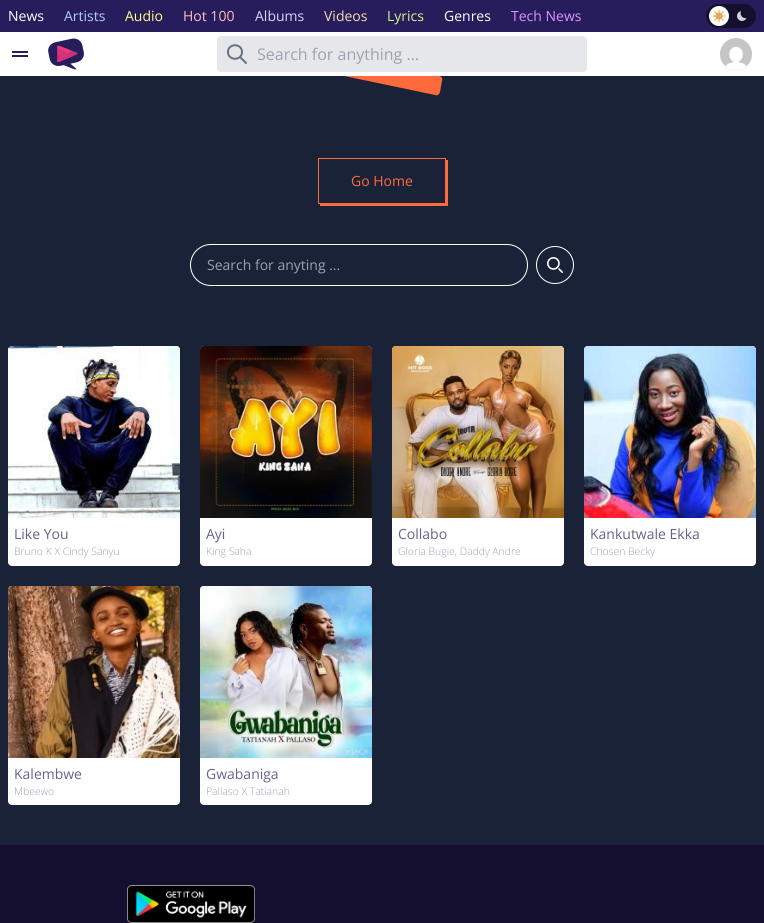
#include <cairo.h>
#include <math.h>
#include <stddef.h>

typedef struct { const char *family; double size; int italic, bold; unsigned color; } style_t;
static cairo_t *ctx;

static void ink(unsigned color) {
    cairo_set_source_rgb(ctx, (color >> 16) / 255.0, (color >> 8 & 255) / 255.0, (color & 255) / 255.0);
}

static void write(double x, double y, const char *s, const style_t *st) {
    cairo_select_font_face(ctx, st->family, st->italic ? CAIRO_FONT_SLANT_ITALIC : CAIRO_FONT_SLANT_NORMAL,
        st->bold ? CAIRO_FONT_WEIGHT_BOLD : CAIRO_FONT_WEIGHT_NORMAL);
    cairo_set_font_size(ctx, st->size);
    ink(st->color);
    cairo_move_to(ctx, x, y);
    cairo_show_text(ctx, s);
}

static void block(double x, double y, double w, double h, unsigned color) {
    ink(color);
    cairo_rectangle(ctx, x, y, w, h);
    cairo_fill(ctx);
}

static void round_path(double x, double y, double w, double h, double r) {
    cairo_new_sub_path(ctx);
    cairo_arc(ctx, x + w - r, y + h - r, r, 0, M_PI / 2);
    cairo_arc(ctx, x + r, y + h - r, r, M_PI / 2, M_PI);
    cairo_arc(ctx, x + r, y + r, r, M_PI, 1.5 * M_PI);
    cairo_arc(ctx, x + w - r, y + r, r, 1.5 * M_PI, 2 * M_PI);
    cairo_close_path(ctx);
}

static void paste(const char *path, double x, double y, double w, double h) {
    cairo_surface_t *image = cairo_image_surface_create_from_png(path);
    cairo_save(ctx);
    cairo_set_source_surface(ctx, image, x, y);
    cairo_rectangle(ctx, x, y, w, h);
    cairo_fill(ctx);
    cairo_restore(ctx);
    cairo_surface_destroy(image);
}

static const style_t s1 = {"Open Sans", 14, 0, 0, 0xffffff};
static const style_t s2 = {"Open Sans", 14, 0, 0, 0xb1ccff};
static const style_t s3 = {"Open Sans", 14, 0, 0, 0xffff82};
static const style_t s4 = {"Open Sans", 14, 0, 0, 0xfbc1c1};
static const style_t s5 = {"Open Sans", 14, 0, 0, 0xd5d5ff};
static const style_t s6 = {"Open Sans", 14, 0, 0, 0xf5deb3};
static const style_t s7 = {"Open Sans", 14, 0, 0, 0xd0f78e};
static const style_t s8 = {"Open Sans", 14, 0, 0, 0xdb93ff};
static const style_t s9 = {"Open Sans", 16, 0, 0, 0x9ca3af};
static const style_t s10 = {"Open Sans", 14, 0, 0, 0xff6a3d};
static const style_t s11 = {"Open Sans", 14, 0, 0, 0x9ca3af};
static const style_t s12 = {"Open Sans", 14, 0, 0, 0x69618d};
static const style_t s13 = {"Open Sans Light", 10.4, 0, 0, 0x9ca3af};

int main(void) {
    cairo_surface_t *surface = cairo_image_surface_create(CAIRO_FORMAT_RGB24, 764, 923);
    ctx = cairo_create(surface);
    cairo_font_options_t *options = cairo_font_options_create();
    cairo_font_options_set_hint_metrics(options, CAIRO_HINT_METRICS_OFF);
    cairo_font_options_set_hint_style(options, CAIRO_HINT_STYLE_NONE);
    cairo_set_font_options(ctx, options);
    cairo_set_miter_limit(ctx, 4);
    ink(0x1a2238);
    cairo_paint(ctx);
    ink(0xff6a3d);
    cairo_new_path(ctx);
    cairo_move_to(ctx, 329, 53);
    cairo_line_to(ctx, 439, 76);
    cairo_curve_to(ctx, 441, 76, 443, 78, 442, 81);
    cairo_line_to(ctx, 440, 92);
    cairo_curve_to(ctx, 439, 95, 437, 96, 435, 95);
    cairo_line_to(ctx, 325, 72);
    cairo_curve_to(ctx, 323, 72, 321, 70, 322, 67);
    cairo_line_to(ctx, 324, 56);
    cairo_curve_to(ctx, 325, 53, 327, 52, 329, 53);
    cairo_close_path(ctx);
    cairo_fill(ctx);
    block(0, 32, 764, 44, 0xffffff);
    block(0, 0, 764, 32, 0x281d5c);
    write(8, 21, "News", &s1);
    write(64, 21, "Artists", &s2);
    write(125, 21, "Audio", &s3);
    write(183, 21, "Hot 100", &s4);
    write(255, 21, "Albums", &s5);
    write(324, 21, "Videos", &s6);
    write(387, 21, "Lyrics", &s7);
    write(444, 21, "Genres", &s1);
    write(511, 21, "Tech News", &s8);
    ink(0x140f2e);
    round_path(706, 4, 50, 24, 12);
    cairo_fill(ctx);
    ink(0xffffff);
    cairo_arc(ctx, 719, 16, 10, 0, 2 * M_PI);
    cairo_fill(ctx);
    paste("pic1.png", 712, 9, 14, 14);
    paste("pic2.png", 737, 11, 10, 10);
    paste("pic3.png", 12, 51, 16, 6);
    paste("pic4.png", 48, 38, 36, 32);
    ink(0xe5e7eb);
    round_path(217, 36, 370, 36, 4);
    cairo_fill(ctx);
    cairo_new_path(ctx);
    cairo_move_to(ctx, 246, 63);
    cairo_line_to(ctx, 240, 57);
    cairo_move_to(ctx, 242, 52);
    cairo_curve_to(ctx, 242, 61, 228, 61, 228, 52);
    cairo_curve_to(ctx, 228, 43, 242, 43, 242, 52);
    cairo_close_path(ctx);
    ink(0x6b7280);
    cairo_set_line_cap(ctx, CAIRO_LINE_CAP_ROUND);
    cairo_set_line_join(ctx, CAIRO_LINE_JOIN_ROUND);
    cairo_stroke(ctx);
    write(257, 60, "Search for anything ...", &s9);
    paste("pic5.png", 720, 38, 32, 33);
    block(320, 160, 128, 46, 0xff6a3d);
    block(320, 160, 125, 43, 0x1a2238);
    cairo_rectangle(ctx, 318.5, 158.5, 127, 45);
    ink(0xff6a3d);
    cairo_set_line_width(ctx, 1);
    cairo_set_line_cap(ctx, CAIRO_LINE_CAP_BUTT);
    cairo_set_line_join(ctx, CAIRO_LINE_JOIN_MITER);
    cairo_stroke(ctx);
    write(351, 186, "Go Home", &s10);
    round_path(190.5, 244.5, 337, 41, 20.5);
    ink(0xffffff);
    cairo_stroke(ctx);
    write(207, 270, "Search for anyting ...", &s11);
    cairo_new_path(ctx);
    cairo_arc(ctx, 555, 265, 18.5, 0, 2 * M_PI);
    ink(0xffffff);
    cairo_stroke(ctx);
    paste("pic6.png", 547, 257, 16, 16);
    round_path(8, 346, 172, 220, 4);
    cairo_fill(ctx);
    paste("pic7.png", 8, 346, 172, 172);
    write(14, 539, "Like You", &s12);
    write(14, 555, "Bruno K X Cindy Sanyu", &s13);
    ink(0xffffff);
    round_path(200, 346, 172, 220, 4);
    cairo_fill(ctx);
    paste("pic8.png", 200, 346, 172, 172);
    write(206, 539, "Ayi", &s12);
    write(206, 555, "King Saha", &s13);
    ink(0xffffff);
    round_path(392, 346, 172, 220, 4);
    cairo_fill(ctx);
    paste("pic9.png", 392, 346, 172, 172);
    write(398, 539, "Collabo", &s12);
    write(398, 555, "Gloria Bugie, Daddy Andre", &s13);
    ink(0xffffff);
    round_path(584, 346, 172, 220, 4);
    cairo_fill(ctx);
    paste("pic10.png", 584, 346, 172, 172);
    write(590, 539, "Kankutwale Ekka", &s12);
    write(590, 555, "Chosen Becky", &s13);
    ink(0xffffff);
    round_path(8, 586, 172, 219, 4);
    cairo_fill(ctx);
    paste("pic11.png", 8, 586, 172, 172);
    write(14, 779, "Kalembwe", &s12);
    write(14, 795, "Mbeewo", &s13);
    ink(0xffffff);
    round_path(200, 586, 172, 219, 4);
    cairo_fill(ctx);
    paste("pic12.png", 200, 586, 172, 172);
    write(206, 779, "Gwabaniga", &s12);
    write(206, 795, "Pallaso X Tatianah", &s13);
    block(0, 845, 764, 78, 0x140f2e);
    paste("pic13.png", 127, 885, 128, 38);
    cairo_surface_write_to_png(surface, "screenshot.png");
    cairo_font_options_destroy(options);
    cairo_destroy(ctx);
    cairo_surface_destroy(surface);
    return 0;
}
